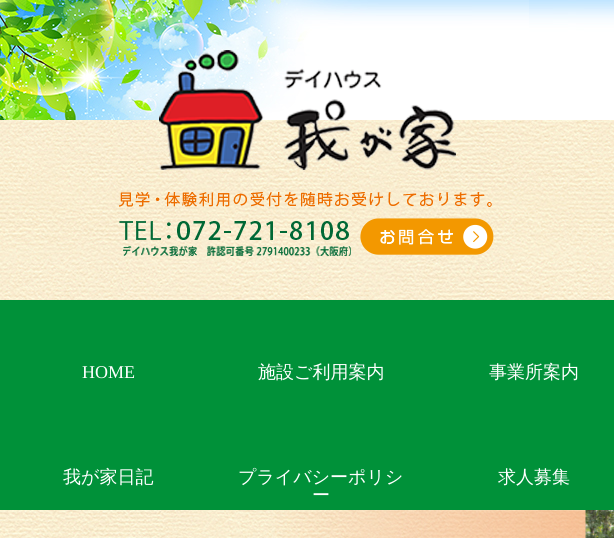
#include <cairo.h>
#include <math.h>
#include <stddef.h>

typedef struct { const char *family; double size; int italic, bold; unsigned color; } style_t;
static cairo_t *ctx;

static void ink(unsigned color) {
    cairo_set_source_rgb(ctx, (color >> 16) / 255.0, (color >> 8 & 255) / 255.0, (color & 255) / 255.0);
}

static void write(double x, double y, const char *s, const style_t *st) {
    cairo_select_font_face(ctx, st->family, st->italic ? CAIRO_FONT_SLANT_ITALIC : CAIRO_FONT_SLANT_NORMAL,
        st->bold ? CAIRO_FONT_WEIGHT_BOLD : CAIRO_FONT_WEIGHT_NORMAL);
    cairo_set_font_size(ctx, st->size);
    ink(st->color);
    cairo_move_to(ctx, x, y);
    cairo_show_text(ctx, s);
}

static void block(double x, double y, double w, double h, unsigned color) {
    ink(color);
    cairo_rectangle(ctx, x, y, w, h);
    cairo_fill(ctx);
}

static void paste(const char *path, double x, double y, double w, double h) {
    cairo_surface_t *image = cairo_image_surface_create_from_png(path);
    cairo_save(ctx);
    cairo_set_source_surface(ctx, image, x, y);
    cairo_rectangle(ctx, x, y, w, h);
    cairo_fill(ctx);
    cairo_restore(ctx);
    cairo_surface_destroy(image);
}

static const style_t s1 = {"Liberation Serif", 18, 0, 0, 0xffffff};
static const style_t s2 = {"WenQuanYi Zen Hei Medium", 18, 0, 0, 0xffffff};

int main(void) {
    cairo_surface_t *surface = cairo_image_surface_create(CAIRO_FORMAT_RGB24, 614, 538);
    ctx = cairo_create(surface);
    cairo_font_options_t *options = cairo_font_options_create();
    cairo_font_options_set_hint_metrics(options, CAIRO_HINT_METRICS_OFF);
    cairo_font_options_set_hint_style(options, CAIRO_HINT_STYLE_NONE);
    cairo_set_font_options(ctx, options);
    cairo_set_miter_limit(ctx, 4);
    ink(0xffffff);
    cairo_paint(ctx);
    paste("pic1.png", 0, 120, 614, 418);
    paste("pic2.png", 529, 0, 85, 120);
    paste("pic3.png", 0, 0, 529, 120);
    paste("pic4.png", 159, 50, 297, 120);
    paste("pic5.png", 119, 192, 375, 64);
    block(0, 300, 614, 210, 0x009139);
    write(82, 378, "HOME", &s1);
    write(258, 378, "施設ご利用案内", &s2);
    write(489, 378, "事業所案内", &s2);
    write(63, 483, "我が家日記", &s2);
    write(238, 483, "プライバシーポリシ", &s2);
    write(312, 501, "ー", &s2);
    write(498, 483, "求人募集", &s2);
    paste("pic6.png", 275, 510, 339, 28);
    cairo_surface_write_to_png(surface, "screenshot.png");
    cairo_font_options_destroy(options);
    cairo_destroy(ctx);
    cairo_surface_destroy(surface);
    return 0;
}
